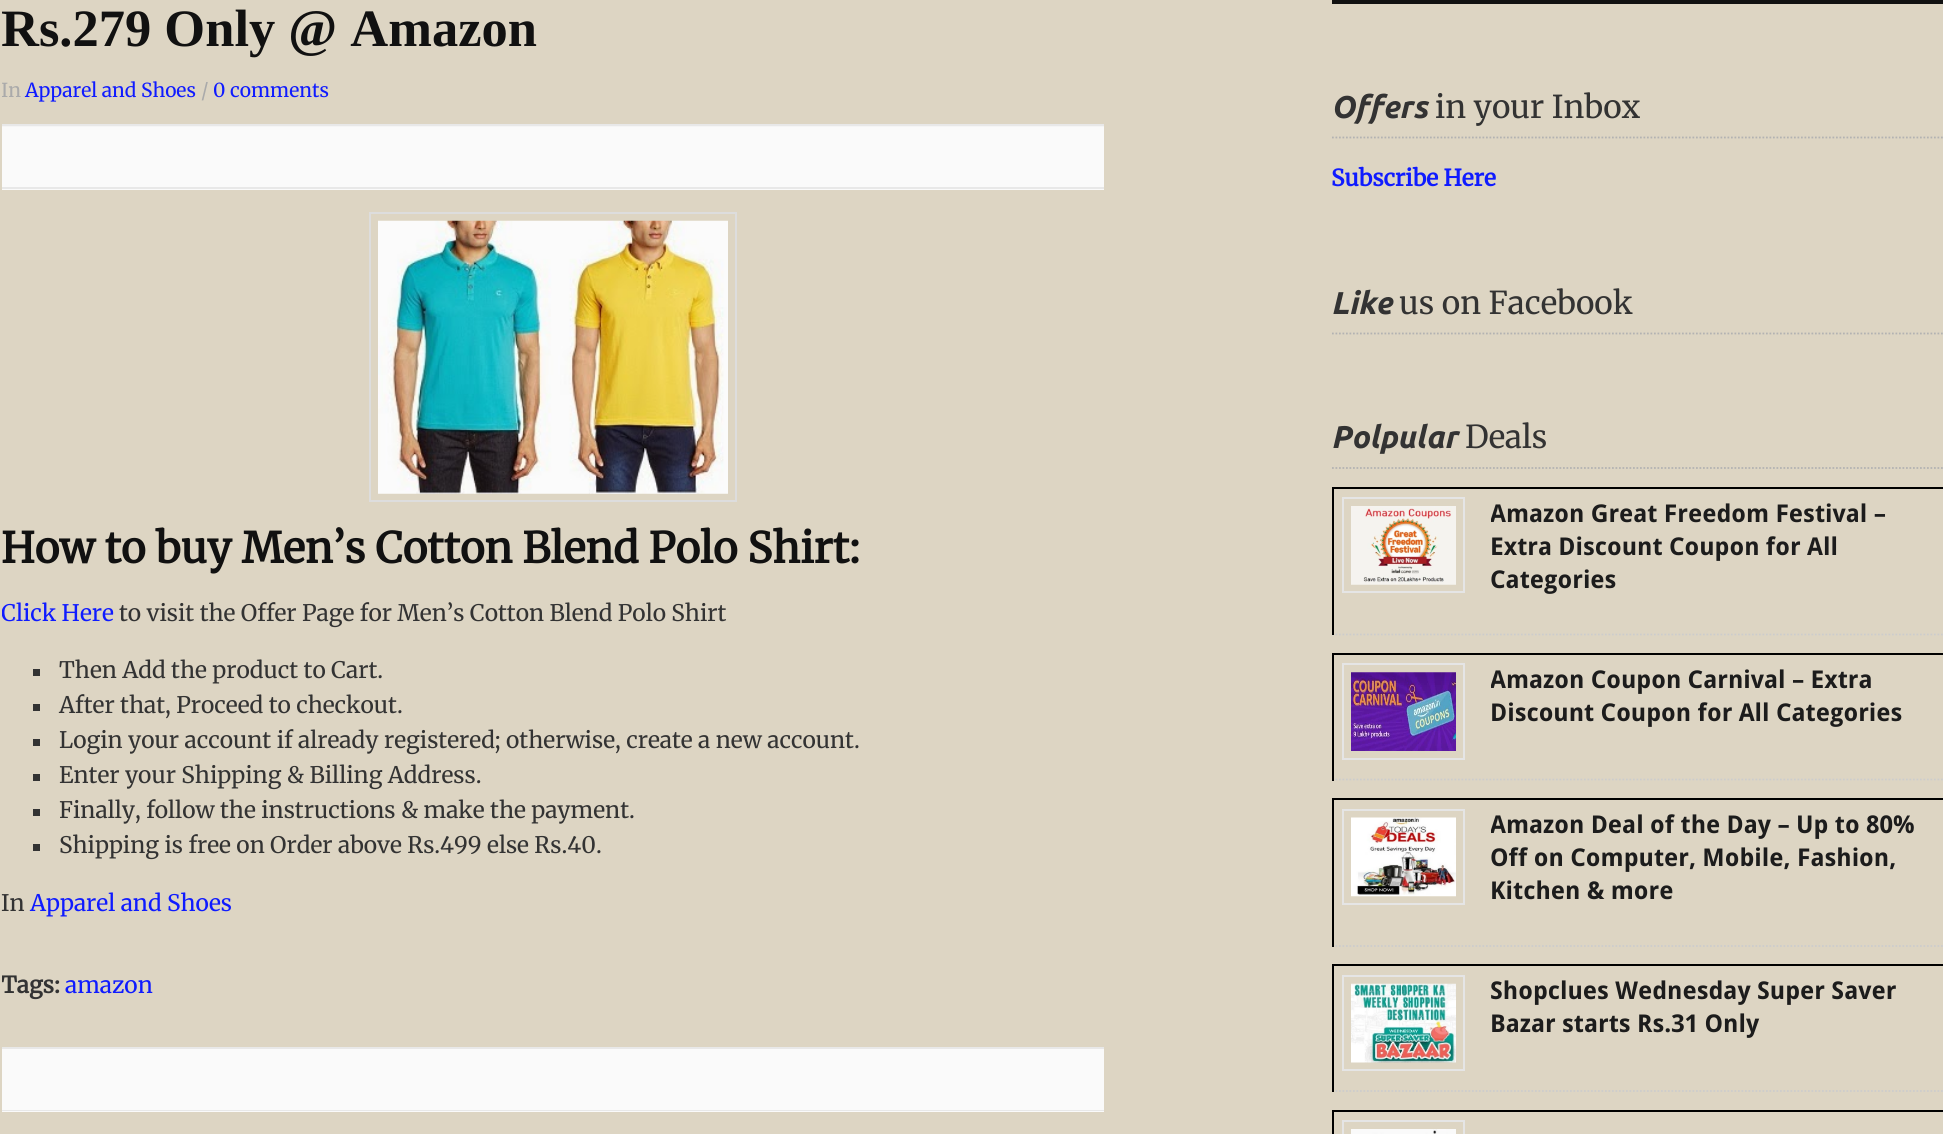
#include <cairo.h>
#include <math.h>
#include <stddef.h>

typedef struct { const char *family; double size; int italic, bold; unsigned color; } style_t;
static cairo_t *ctx;

static void ink(unsigned color) {
    cairo_set_source_rgb(ctx, (color >> 16) / 255.0, (color >> 8 & 255) / 255.0, (color & 255) / 255.0);
}

static void write(double x, double y, const char *s, const style_t *st) {
    cairo_select_font_face(ctx, st->family, st->italic ? CAIRO_FONT_SLANT_ITALIC : CAIRO_FONT_SLANT_NORMAL,
        st->bold ? CAIRO_FONT_WEIGHT_BOLD : CAIRO_FONT_WEIGHT_NORMAL);
    cairo_set_font_size(ctx, st->size);
    ink(st->color);
    cairo_move_to(ctx, x, y);
    cairo_show_text(ctx, s);
}

static void block(double x, double y, double w, double h, unsigned color) {
    ink(color);
    cairo_rectangle(ctx, x, y, w, h);
    cairo_fill(ctx);
}

static void paste(const char *path, double x, double y, double w, double h) {
    cairo_surface_t *image = cairo_image_surface_create_from_png(path);
    cairo_save(ctx);
    cairo_set_source_surface(ctx, image, x, y);
    cairo_rectangle(ctx, x, y, w, h);
    cairo_fill(ctx);
    cairo_restore(ctx);
    cairo_surface_destroy(image);
}

static const style_t s1 = {"Liberation Serif", 52.5, 0, 1, 0x111111};
static const style_t s2 = {"Merriweather Light", 19.25, 0, 0, 0xaaaaaa};
static const style_t s3 = {"Merriweather Light", 19.25, 0, 0, 0x0f1bff};
static const style_t s4 = {"Merriweather", 42, 0, 1, 0x111111};
static const style_t s5 = {"Merriweather Light", 22.75, 0, 0, 0x0f1bff};
static const style_t s6 = {"Merriweather Light", 22.75, 0, 0, 0x333333};
static const style_t s7 = {"Merriweather", 22.75, 0, 1, 0x333333};
static const style_t s8 = {"Ubuntu", 31.5, 1, 1, 0x333333};
static const style_t s9 = {"Merriweather Light", 31.5, 0, 0, 0x333333};
static const style_t s10 = {"Merriweather", 22.75, 0, 1, 0x0f1bff};
static const style_t s11 = {"Droid Sans", 24.5, 0, 1, 0x1c1c1c};

int main(void) {
    cairo_surface_t *surface = cairo_image_surface_create(CAIRO_FORMAT_RGB24, 1943, 1134);
    ctx = cairo_create(surface);
    cairo_font_options_t *options = cairo_font_options_create();
    cairo_font_options_set_hint_metrics(options, CAIRO_HINT_METRICS_OFF);
    cairo_font_options_set_hint_style(options, CAIRO_HINT_STYLE_NONE);
    cairo_set_font_options(ctx, options);
    cairo_set_miter_limit(ctx, 4);
    ink(0xddd5c3);
    cairo_paint(ctx);
    cairo_save(ctx);
    cairo_rectangle(ctx, 2, 0, 1102, 1111);
    cairo_clip(ctx);
    write(1, 46, "Rs.279 Only @ Amazon", &s1);
    write(1, 97, "In", &s2);
    cairo_restore(ctx);
    write(25, 97, "Apparel and Shoes", &s3);
    write(201, 97, "/", &s2);
    write(213, 97, "0 comments", &s3);
    block(2, 126, 1102, 1, 0xf5f5f5);
    block(2, 127, 1102, 63, 0xfafafa);
    block(2, 124, 1102, 2, 0xe8e8e8);
    block(2, 187, 1102, 2, 0xe8e8e8);
    cairo_rectangle(ctx, 370, 213, 366, 288);
    ink(0xdddddd);
    cairo_stroke(ctx);
    paste("pic1.png", 378, 220, 350, 274);
    write(1, 563, "How to buy Men’s Cotton Blend Polo Shirt:", &s4);
    cairo_save(ctx);
    cairo_rectangle(ctx, 2, 0, 1102, 1111);
    cairo_clip(ctx);
    write(1, 621, "Click Here", &s5);
    cairo_restore(ctx);
    write(119, 621, "to visit the Offer Page for Men’s Cotton Blend Polo Shirt", &s6);
    block(33, 669, 7, 7, 0x333333);
    write(59, 678, "Then Add the product to Cart.", &s6);
    block(33, 704, 7, 7, 0x333333);
    write(59, 713, "After that, Proceed to checkout.", &s6);
    block(33, 739, 7, 7, 0x333333);
    write(59, 748, "Login your account if already registered; otherwise, create a new account.", &s6);
    block(33, 774, 7, 7, 0x333333);
    write(59, 783, "Enter your Shipping & Billing Address.", &s6);
    block(33, 809, 7, 7, 0x333333);
    write(59, 818, "Finally, follow the instructions & make the payment.", &s6);
    block(33, 844, 7, 7, 0x333333);
    write(59, 853, "Shipping is free on Order above Rs.499 else Rs.40.", &s6);
    write(1, 911, "In", &s6);
    write(30, 911, "Apparel and Shoes", &s5);
    cairo_save(ctx);
    cairo_rectangle(ctx, 2, 0, 1102, 1111);
    cairo_clip(ctx);
    write(1, 993, "Tags:", &s7);
    cairo_restore(ctx);
    write(65, 993, "amazon", &s5);
    block(2, 1049, 1102, 63, 0xfafafa);
    block(2, 1047, 1102, 2, 0xe8e8e8);
    block(2, 1110, 1102, 1, 0xe8e8e8);
    block(1332, 0, 611, 4, 0x111111);
    cairo_new_path(ctx);
    cairo_move_to(ctx, 1332, 137.5);
    cairo_line_to(ctx, 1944, 137.5);
    ink(0xb2b2b2);
    cairo_set_line_width(ctx, 1.8);
    cairo_set_dash(ctx, (double[]){1.75, 1.75}, 2, 0);
    cairo_stroke(ctx);
    write(1331, 118, "Offers", &s8);
    write(1435, 118, "in your Inbox", &s9);
    write(1331, 186, "Subscribe Here", &s10);
    cairo_new_path(ctx);
    cairo_move_to(ctx, 1332, 333.5);
    cairo_line_to(ctx, 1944, 333.5);
    ink(0xb2b2b2);
    cairo_stroke(ctx);
    write(1331, 314, "Like", &s8);
    write(1399, 314, "us on Facebook", &s9);
    cairo_new_path(ctx);
    cairo_move_to(ctx, 1332, 468);
    cairo_line_to(ctx, 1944, 468);
    ink(0xb2b2b2);
    cairo_stroke(ctx);
    write(1331, 448, "Polpular", &s8);
    write(1465, 448, "Deals", &s9);
    block(1332, 487, 611, 2, 0x000000);
    cairo_new_path(ctx);
    cairo_move_to(ctx, 1332, 634.5);
    cairo_line_to(ctx, 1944, 634.5);
    ink(0xcccccc);
    cairo_stroke(ctx);
    block(1332, 487, 2, 148, 0x000000);
    cairo_rectangle(ctx, 1343, 498, 121, 94);
    ink(0xe5e5e5);
    cairo_set_line_width(ctx, 2);
    cairo_set_dash(ctx, NULL, 0, 0);
    cairo_stroke(ctx);
    paste("pic2.png", 1351, 506, 105, 79);
    cairo_save(ctx);
    cairo_rectangle(ctx, 1491, 497, 443, 117);
    cairo_clip(ctx);
    write(1490, 522, "Amazon Great Freedom Festival –", &s11);
    cairo_restore(ctx);
    write(1490, 555, "Extra Discount Coupon for All", &s11);
    write(1490, 588, "Categories", &s11);
    block(1332, 653, 611, 2, 0x000000);
    cairo_new_path(ctx);
    cairo_move_to(ctx, 1332, 779.5);
    cairo_line_to(ctx, 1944, 779.5);
    ink(0xcccccc);
    cairo_set_line_width(ctx, 1.8);
    cairo_set_dash(ctx, (double[]){1.75, 1.75}, 2, 0);
    cairo_stroke(ctx);
    block(1332, 653, 2, 128, 0x000000);
    cairo_rectangle(ctx, 1343, 664, 121, 95);
    ink(0xe5e5e5);
    cairo_set_line_width(ctx, 2);
    cairo_set_dash(ctx, NULL, 0, 0);
    cairo_stroke(ctx);
    paste("pic3.png", 1351, 672, 105, 79);
    cairo_save(ctx);
    cairo_rectangle(ctx, 1491, 663, 443, 84);
    cairo_clip(ctx);
    write(1490, 688, "Amazon Coupon Carnival – Extra", &s11);
    cairo_restore(ctx);
    write(1490, 721, "Discount Coupon for All Categories", &s11);
    block(1332, 798, 611, 2, 0x000000);
    cairo_new_path(ctx);
    cairo_move_to(ctx, 1332, 946);
    cairo_line_to(ctx, 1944, 946);
    ink(0xcccccc);
    cairo_set_line_width(ctx, 1.8);
    cairo_set_dash(ctx, (double[]){1.75, 1.75}, 2, 0);
    cairo_stroke(ctx);
    block(1332, 798, 2, 149, 0x000000);
    cairo_rectangle(ctx, 1343, 810, 121, 94);
    ink(0xe5e5e5);
    cairo_set_line_width(ctx, 2);
    cairo_set_dash(ctx, NULL, 0, 0);
    cairo_stroke(ctx);
    paste("pic4.png", 1351, 817, 105, 80);
    cairo_save(ctx);
    cairo_rectangle(ctx, 1491, 809, 443, 117);
    cairo_clip(ctx);
    write(1490, 833, "Amazon Deal of the Day – Up to 80%", &s11);
    cairo_restore(ctx);
    write(1490, 866, "Off on Computer, Mobile, Fashion,", &s11);
    write(1490, 899, "Kitchen & more", &s11);
    block(1332, 964, 611, 2, 0x000000);
    cairo_new_path(ctx);
    cairo_move_to(ctx, 1332, 1091);
    cairo_line_to(ctx, 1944, 1091);
    ink(0xcccccc);
    cairo_set_line_width(ctx, 1.8);
    cairo_set_dash(ctx, (double[]){1.75, 1.75}, 2, 0);
    cairo_stroke(ctx);
    block(1332, 964, 2, 128, 0x000000);
    cairo_rectangle(ctx, 1343, 976, 121, 94);
    ink(0xe5e5e5);
    cairo_set_line_width(ctx, 2);
    cairo_set_dash(ctx, NULL, 0, 0);
    cairo_stroke(ctx);
    paste("pic5.png", 1351, 983, 105, 80);
    write(1490, 999, "Shopclues Wednesday Super Saver", &s11);
    write(1490, 1032, "Bazar starts Rs.31 Only", &s11);
    block(1332, 1110, 611, 2, 0x000000);
    block(1332, 1110, 2, 24, 0x000000);
    cairo_rectangle(ctx, 1343, 1121, 121, 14);
    ink(0xe5e5e5);
    cairo_stroke(ctx);
    paste("pic6.png", 1351, 1129, 105, 5);
    cairo_surface_write_to_png(surface, "screenshot.png");
    cairo_font_options_destroy(options);
    cairo_destroy(ctx);
    cairo_surface_destroy(surface);
    return 0;
}
